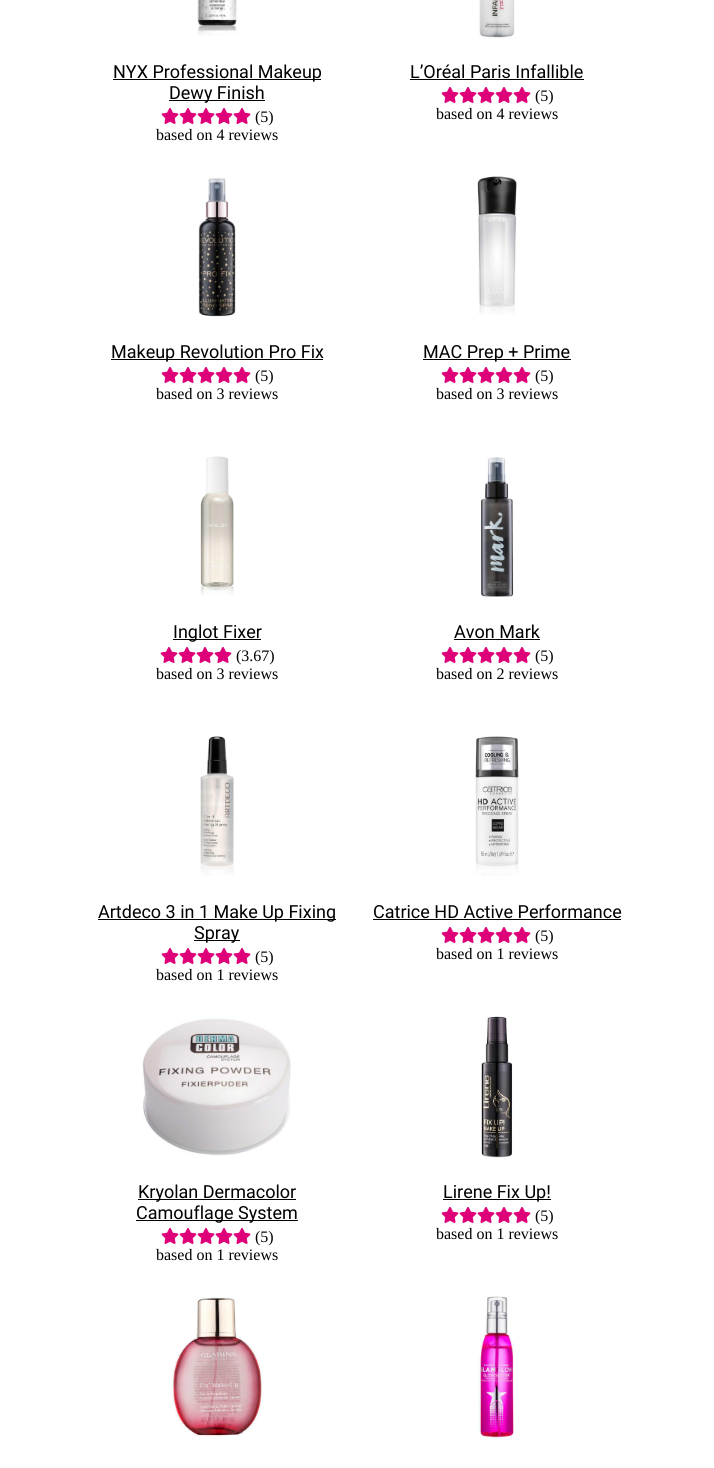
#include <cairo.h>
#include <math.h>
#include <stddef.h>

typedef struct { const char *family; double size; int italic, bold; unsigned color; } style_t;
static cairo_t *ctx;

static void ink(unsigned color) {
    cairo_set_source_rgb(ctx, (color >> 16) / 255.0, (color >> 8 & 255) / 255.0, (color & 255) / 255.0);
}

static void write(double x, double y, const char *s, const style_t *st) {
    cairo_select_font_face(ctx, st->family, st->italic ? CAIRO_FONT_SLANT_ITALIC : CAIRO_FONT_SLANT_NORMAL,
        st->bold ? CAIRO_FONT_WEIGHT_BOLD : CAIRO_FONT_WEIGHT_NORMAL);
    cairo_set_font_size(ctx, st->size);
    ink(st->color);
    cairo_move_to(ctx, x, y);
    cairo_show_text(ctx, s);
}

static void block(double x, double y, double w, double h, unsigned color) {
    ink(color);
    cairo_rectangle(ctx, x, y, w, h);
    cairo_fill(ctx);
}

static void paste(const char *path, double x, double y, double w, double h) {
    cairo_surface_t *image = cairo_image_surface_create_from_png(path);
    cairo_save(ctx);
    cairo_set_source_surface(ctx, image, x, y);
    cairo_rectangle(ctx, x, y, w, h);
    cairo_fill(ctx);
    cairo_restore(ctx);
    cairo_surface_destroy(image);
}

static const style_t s1 = {"Roboto", 18, 0, 0, 0x000000};
static const style_t s2 = {"Liberation Serif", 16, 0, 0, 0x000000};

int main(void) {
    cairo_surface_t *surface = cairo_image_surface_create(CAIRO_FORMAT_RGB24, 714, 1468);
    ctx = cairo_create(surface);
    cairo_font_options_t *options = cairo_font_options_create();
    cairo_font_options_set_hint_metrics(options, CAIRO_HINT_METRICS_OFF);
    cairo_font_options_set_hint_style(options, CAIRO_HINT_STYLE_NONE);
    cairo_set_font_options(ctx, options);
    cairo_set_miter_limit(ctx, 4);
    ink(0xffffff);
    cairo_paint(ctx);
    paste("pic1.png", 197, 0, 40, 36);
    block(113, 79, 208, 1, 0x000000);
    write(113, 78, "NYX Professional Makeup", &s1);
    block(169, 100, 96, 1, 0x000000);
    write(169, 99, "Dewy Finish", &s1);
    paste("pic2.png", 161, 108, 18, 16);
    paste("pic2.png", 179, 108, 18, 16);
    paste("pic2.png", 197, 108, 18, 16);
    paste("pic2.png", 215, 108, 18, 16);
    paste("pic2.png", 233, 108, 18, 16);
    write(255, 122, "(5)", &s2);
    write(156, 140, "based on 4 reviews", &s2);
    paste("pic3.png", 479, 0, 36, 38);
    write(410, 78, "L’Oréal Paris Infallible", &s1);
    block(410, 79, 174, 1, 0x000000);
    paste("pic2.png", 441, 87, 18, 16);
    paste("pic2.png", 459, 87, 18, 16);
    paste("pic2.png", 477, 87, 18, 16);
    paste("pic2.png", 495, 87, 18, 16);
    paste("pic2.png", 513, 87, 18, 16);
    write(535, 101, "(5)", &s2);
    write(436, 119, "based on 4 reviews", &s2);
    paste("pic4.png", 198, 177, 38, 140);
    block(111, 359, 212, 1, 0x000000);
    write(111, 358, "Makeup Revolution Pro Fix", &s1);
    paste("pic2.png", 161, 367, 18, 16);
    paste("pic2.png", 179, 367, 18, 16);
    paste("pic2.png", 197, 367, 18, 16);
    paste("pic2.png", 215, 367, 18, 16);
    paste("pic2.png", 233, 367, 18, 16);
    write(255, 381, "(5)", &s2);
    write(156, 399, "based on 3 reviews", &s2);
    paste("pic5.png", 477, 176, 40, 139);
    block(423, 359, 148, 1, 0x000000);
    write(423, 358, "MAC Prep + Prime", &s1);
    paste("pic2.png", 441, 367, 18, 16);
    paste("pic2.png", 459, 367, 18, 16);
    paste("pic2.png", 477, 367, 18, 16);
    paste("pic2.png", 495, 367, 18, 16);
    paste("pic2.png", 513, 367, 18, 16);
    write(535, 381, "(5)", &s2);
    write(436, 399, "based on 3 reviews", &s2);
    paste("pic6.png", 200, 456, 34, 140);
    block(173, 639, 88, 1, 0x000000);
    write(173, 638, "Inglot Fixer", &s1);
    paste("pic2.png", 160, 647, 18, 16);
    paste("pic2.png", 178, 647, 18, 16);
    paste("pic2.png", 196, 647, 18, 16);
    paste("pic2.png", 214, 647, 18, 16);
    write(236, 661, "(3.67)", &s2);
    write(156, 679, "based on 3 reviews", &s2);
    paste("pic7.png", 481, 457, 33, 140);
    write(454, 638, "Avon Mark", &s1);
    block(454, 639, 86, 1, 0x000000);
    paste("pic2.png", 441, 647, 18, 16);
    paste("pic2.png", 459, 647, 18, 16);
    paste("pic2.png", 477, 647, 18, 16);
    paste("pic2.png", 495, 647, 18, 16);
    paste("pic2.png", 513, 647, 18, 16);
    write(535, 661, "(5)", &s2);
    write(436, 679, "based on 2 reviews", &s2);
    paste("pic8.png", 200, 736, 34, 140);
    block(98, 919, 238, 1, 0x000000);
    write(98, 918, "Artdeco 3 in 1 Make Up Fixing", &s1);
    block(194, 940, 46, 1, 0x000000);
    write(194, 939, "Spray", &s1);
    paste("pic2.png", 161, 948, 18, 16);
    paste("pic2.png", 179, 948, 18, 16);
    paste("pic2.png", 197, 948, 18, 16);
    paste("pic2.png", 215, 948, 18, 16);
    paste("pic2.png", 233, 948, 18, 16);
    write(255, 962, "(5)", &s2);
    write(156, 980, "based on 1 reviews", &s2);
    paste("pic9.png", 475, 736, 44, 140);
    write(373, 918, "Catrice HD Active Performance", &s1);
    block(373, 919, 248, 1, 0x000000);
    paste("pic2.png", 441, 927, 18, 16);
    paste("pic2.png", 459, 927, 18, 16);
    paste("pic2.png", 477, 927, 18, 16);
    paste("pic2.png", 495, 927, 18, 16);
    paste("pic2.png", 513, 927, 18, 16);
    write(535, 941, "(5)", &s2);
    write(436, 959, "based on 1 reviews", &s2);
    paste("pic10.png", 142, 1018, 149, 138);
    block(138, 1199, 158, 1, 0x000000);
    write(138, 1198, "Kryolan Dermacolor", &s1);
    block(136, 1220, 162, 1, 0x000000);
    write(136, 1219, "Camouflage System", &s1);
    paste("pic2.png", 161, 1228, 18, 16);
    paste("pic2.png", 179, 1228, 18, 16);
    paste("pic2.png", 197, 1228, 18, 16);
    paste("pic2.png", 215, 1228, 18, 16);
    paste("pic2.png", 233, 1228, 18, 16);
    write(255, 1242, "(5)", &s2);
    write(156, 1260, "based on 1 reviews", &s2);
    paste("pic11.png", 481, 1016, 32, 142);
    block(443, 1199, 108, 1, 0x000000);
    write(443, 1198, "Lirene Fix Up!", &s1);
    paste("pic2.png", 441, 1207, 18, 16);
    paste("pic2.png", 459, 1207, 18, 16);
    paste("pic2.png", 477, 1207, 18, 16);
    paste("pic2.png", 495, 1207, 18, 16);
    paste("pic2.png", 513, 1207, 18, 16);
    write(535, 1221, "(5)", &s2);
    write(436, 1239, "based on 1 reviews", &s2);
    paste("pic12.png", 171, 1297, 92, 140);
    paste("pic13.png", 478, 1296, 36, 144);
    cairo_surface_write_to_png(surface, "screenshot.png");
    cairo_font_options_destroy(options);
    cairo_destroy(ctx);
    cairo_surface_destroy(surface);
    return 0;
}
